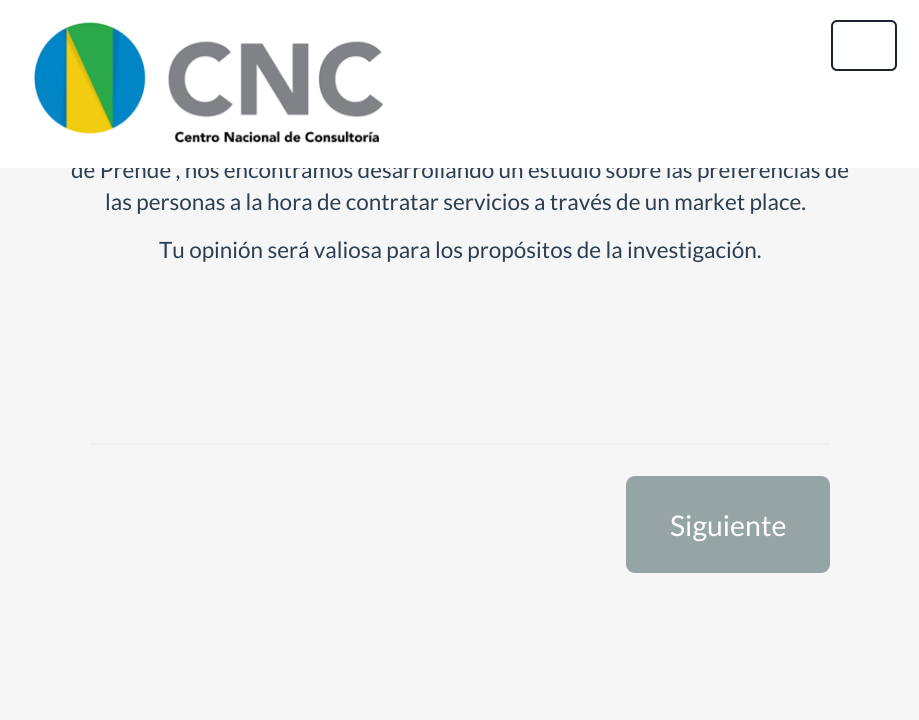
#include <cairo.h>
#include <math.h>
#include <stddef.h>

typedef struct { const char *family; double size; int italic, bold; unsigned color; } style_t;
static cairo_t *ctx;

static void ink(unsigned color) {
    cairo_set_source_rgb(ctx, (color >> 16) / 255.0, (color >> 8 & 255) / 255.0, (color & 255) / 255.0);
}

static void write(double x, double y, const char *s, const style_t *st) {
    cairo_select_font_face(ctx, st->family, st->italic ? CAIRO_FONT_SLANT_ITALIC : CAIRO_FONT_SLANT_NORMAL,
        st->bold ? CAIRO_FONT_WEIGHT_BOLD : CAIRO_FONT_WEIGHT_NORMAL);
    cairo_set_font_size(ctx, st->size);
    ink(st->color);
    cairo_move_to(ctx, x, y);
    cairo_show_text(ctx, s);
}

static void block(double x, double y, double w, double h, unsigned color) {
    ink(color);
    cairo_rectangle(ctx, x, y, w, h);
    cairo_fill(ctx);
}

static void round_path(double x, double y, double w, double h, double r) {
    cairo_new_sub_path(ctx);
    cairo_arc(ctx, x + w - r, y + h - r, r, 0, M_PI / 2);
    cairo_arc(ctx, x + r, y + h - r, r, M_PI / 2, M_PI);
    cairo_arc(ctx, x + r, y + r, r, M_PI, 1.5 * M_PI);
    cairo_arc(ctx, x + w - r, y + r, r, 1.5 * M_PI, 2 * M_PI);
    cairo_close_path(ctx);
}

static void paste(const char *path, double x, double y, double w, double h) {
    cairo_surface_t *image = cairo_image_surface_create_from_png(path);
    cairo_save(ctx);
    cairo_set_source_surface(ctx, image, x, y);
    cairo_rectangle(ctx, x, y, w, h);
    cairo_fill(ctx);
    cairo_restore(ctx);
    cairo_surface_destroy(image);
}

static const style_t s1 = {"Lato", 22.5, 0, 0, 0x2c3e50};
static const style_t s2 = {"Lato", 28.5, 0, 0, 0xffffff};

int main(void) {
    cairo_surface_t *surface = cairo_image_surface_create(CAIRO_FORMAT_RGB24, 919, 720);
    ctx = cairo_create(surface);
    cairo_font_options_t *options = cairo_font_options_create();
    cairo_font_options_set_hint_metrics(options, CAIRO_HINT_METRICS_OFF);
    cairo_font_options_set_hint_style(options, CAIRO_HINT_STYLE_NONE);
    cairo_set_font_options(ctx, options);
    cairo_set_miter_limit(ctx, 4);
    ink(0xf6f6f6);
    cairo_paint(ctx);
    write(71, 178, "de Prende , nos encontramos desarrollando un estudio sobre las preferencias de", &s1);
    block(0, 0, 919, 168, 0xffffff);
    paste("pic1.png", 34, 22, 350, 121);
    round_path(832, 21, 64, 49, 5);
    ink(0x1a242f);
    cairo_stroke(ctx);
    write(105, 210, "las personas a la hora de contratar servicios a través de un market place.", &s1);
    write(159, 258, "Tu opinión será valiosa para los propósitos de la investigación.", &s1);
    block(90, 443, 740, 2, 0xecf0f1);
    ink(0x95a5a6);
    round_path(627.5, 477.5, 201, 94, 7.5);
    cairo_fill_preserve(ctx);
    cairo_set_line_width(ctx, 3);
    cairo_stroke(ctx);
    write(670, 536, "Siguiente", &s2);
    cairo_surface_write_to_png(surface, "screenshot.png");
    cairo_font_options_destroy(options);
    cairo_destroy(ctx);
    cairo_surface_destroy(surface);
    return 0;
}
